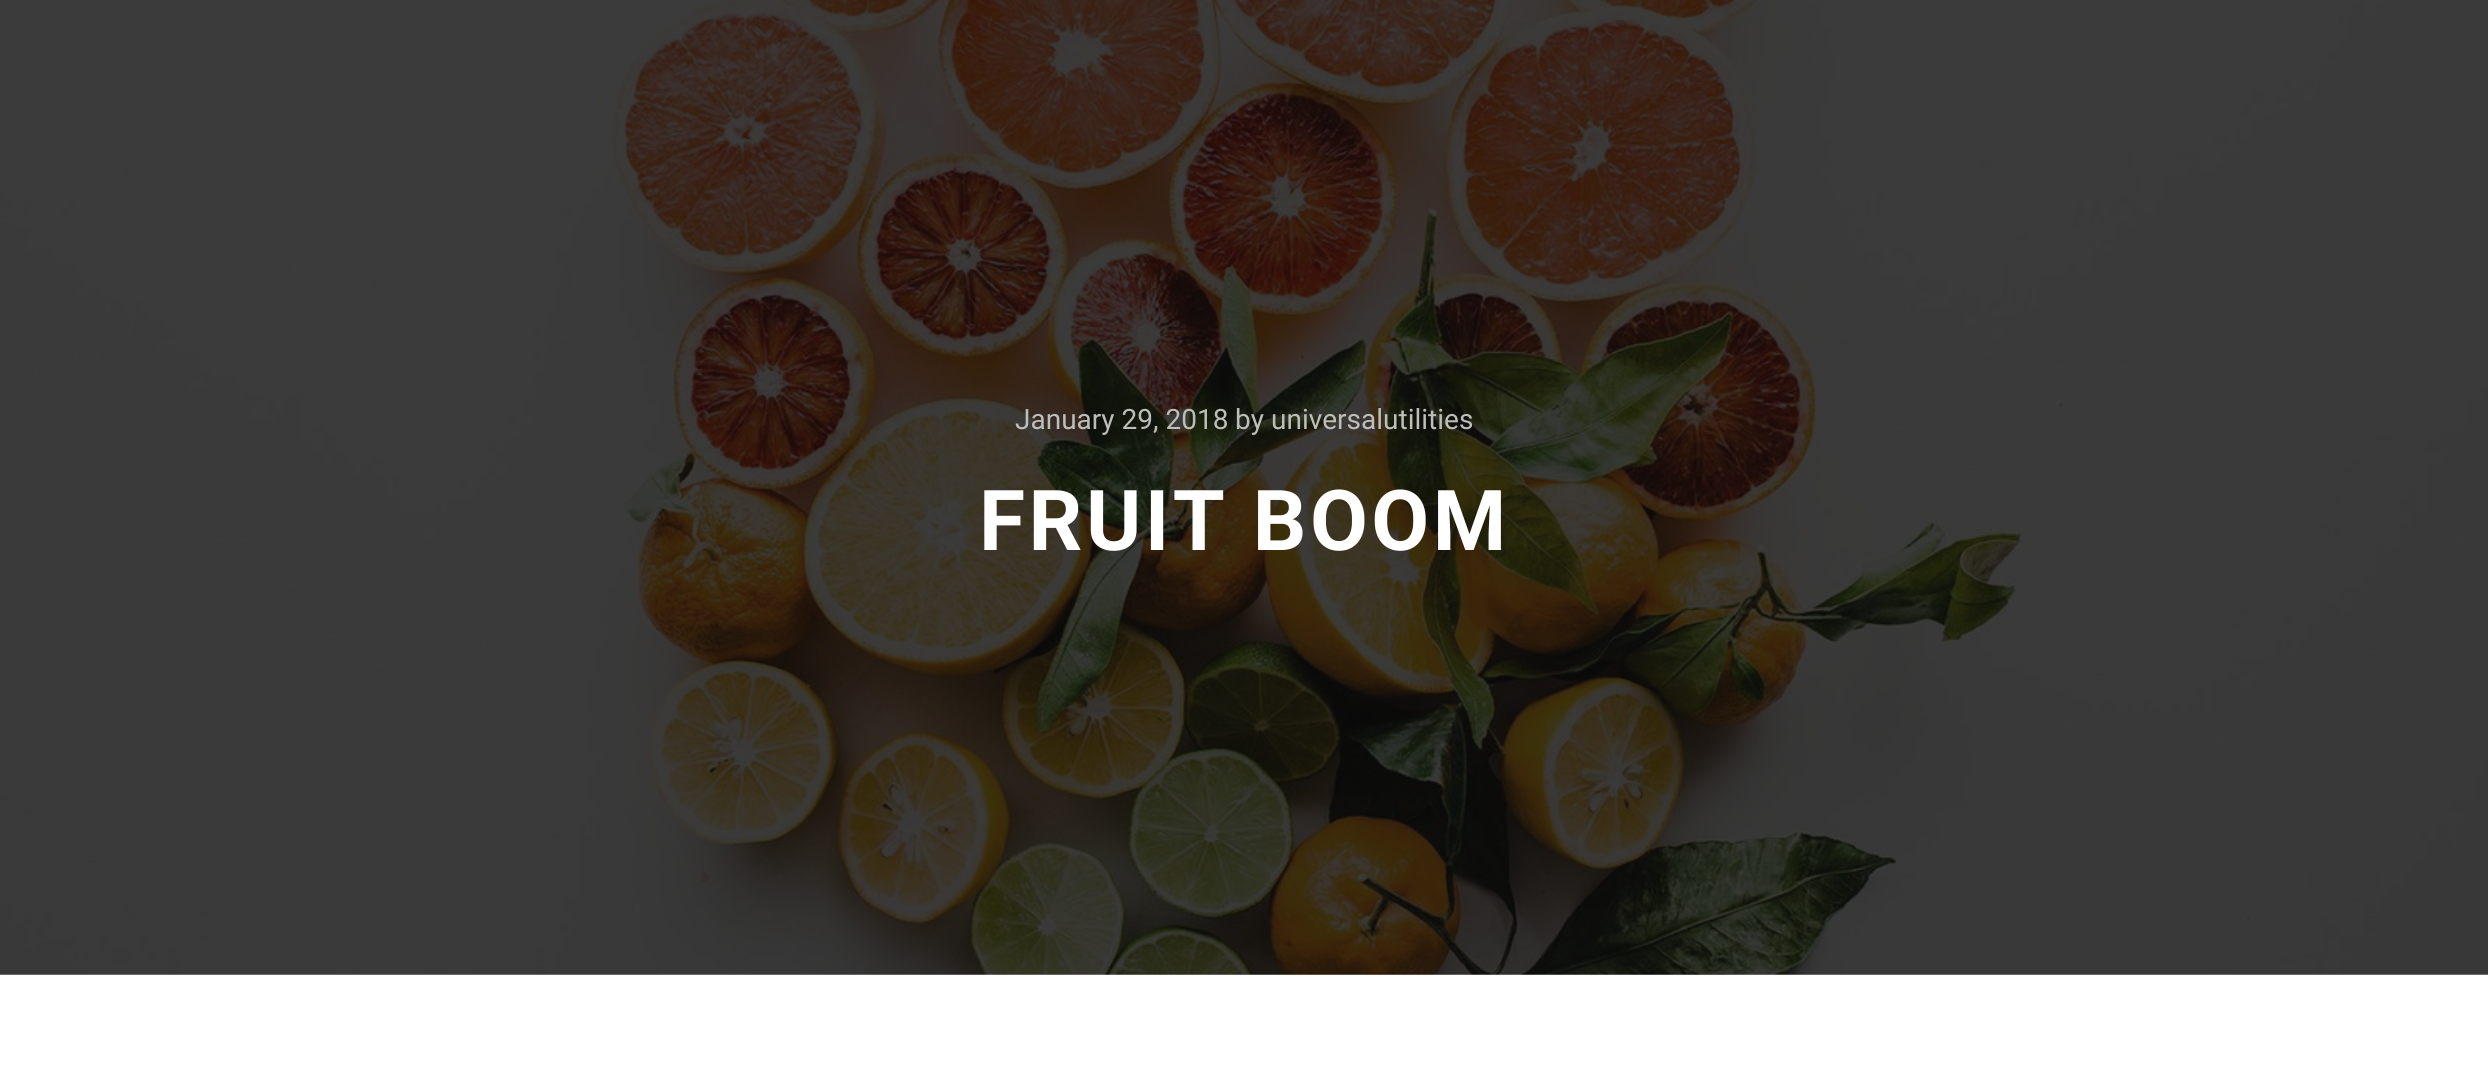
#include <cairo.h>
#include <math.h>
#include <stddef.h>

typedef struct { const char *family; double size; int italic, bold; unsigned color; } style_t;
static cairo_t *ctx;

static void ink(unsigned color) {
    cairo_set_source_rgb(ctx, (color >> 16) / 255.0, (color >> 8 & 255) / 255.0, (color & 255) / 255.0);
}

static void write(double x, double y, const char *s, const style_t *st) {
    cairo_select_font_face(ctx, st->family, st->italic ? CAIRO_FONT_SLANT_ITALIC : CAIRO_FONT_SLANT_NORMAL,
        st->bold ? CAIRO_FONT_WEIGHT_BOLD : CAIRO_FONT_WEIGHT_NORMAL);
    cairo_set_font_size(ctx, st->size);
    ink(st->color);
    cairo_move_to(ctx, x, y);
    cairo_show_text(ctx, s);
}

static void write_spaced(double x, double y, const char *s, double letter, double word) {
    cairo_move_to(ctx, x, y);
    while (*s) {
        char ch[5] = {0};
        int n = 0;
        do ch[n++] = *s++; while ((*s & 0xC0) == 0x80);
        cairo_show_text(ctx, ch);
        cairo_rel_move_to(ctx, letter + word * (*ch == ' '), 0);
    }
}

static void paste(const char *path, double x, double y, double w, double h) {
    cairo_surface_t *image = cairo_image_surface_create_from_png(path);
    cairo_save(ctx);
    cairo_set_source_surface(ctx, image, x, y);
    cairo_rectangle(ctx, x, y, w, h);
    cairo_fill(ctx);
    cairo_restore(ctx);
    cairo_surface_destroy(image);
}

static const style_t s1 = {"Roboto", 28, 0, 0, 0xbdbdba};

int main(void) {
    cairo_surface_t *surface = cairo_image_surface_create(CAIRO_FORMAT_RGB24, 2488, 1087);
    ctx = cairo_create(surface);
    cairo_font_options_t *options = cairo_font_options_create();
    cairo_font_options_set_hint_metrics(options, CAIRO_HINT_METRICS_OFF);
    cairo_font_options_set_hint_style(options, CAIRO_HINT_STYLE_NONE);
    cairo_set_font_options(ctx, options);
    cairo_set_miter_limit(ctx, 4);
    ink(0xffffff);
    cairo_paint(ctx);
    paste("pic1.png", 0, 0, 2488, 975);
    write(1015, 429, "January 29, 2018", &s1);
    write(1235, 429, "by", &s1);
    write(1271, 429, "universalutilities", &s1);
    cairo_select_font_face(ctx, "Roboto", CAIRO_FONT_SLANT_NORMAL, CAIRO_FONT_WEIGHT_BOLD);
    cairo_set_font_size(ctx, 84);
    ink(0xffffff);
    write_spaced(979, 550, "FRUIT BOOM", 3.5, 0);
    cairo_surface_write_to_png(surface, "screenshot.png");
    cairo_font_options_destroy(options);
    cairo_destroy(ctx);
    cairo_surface_destroy(surface);
    return 0;
}
